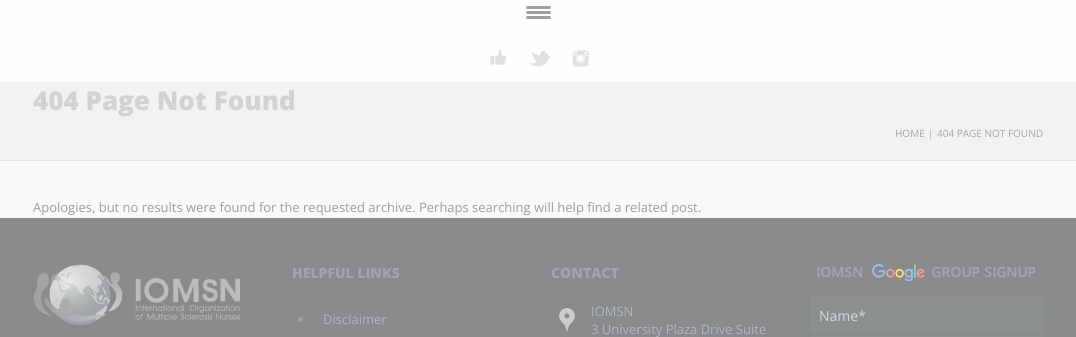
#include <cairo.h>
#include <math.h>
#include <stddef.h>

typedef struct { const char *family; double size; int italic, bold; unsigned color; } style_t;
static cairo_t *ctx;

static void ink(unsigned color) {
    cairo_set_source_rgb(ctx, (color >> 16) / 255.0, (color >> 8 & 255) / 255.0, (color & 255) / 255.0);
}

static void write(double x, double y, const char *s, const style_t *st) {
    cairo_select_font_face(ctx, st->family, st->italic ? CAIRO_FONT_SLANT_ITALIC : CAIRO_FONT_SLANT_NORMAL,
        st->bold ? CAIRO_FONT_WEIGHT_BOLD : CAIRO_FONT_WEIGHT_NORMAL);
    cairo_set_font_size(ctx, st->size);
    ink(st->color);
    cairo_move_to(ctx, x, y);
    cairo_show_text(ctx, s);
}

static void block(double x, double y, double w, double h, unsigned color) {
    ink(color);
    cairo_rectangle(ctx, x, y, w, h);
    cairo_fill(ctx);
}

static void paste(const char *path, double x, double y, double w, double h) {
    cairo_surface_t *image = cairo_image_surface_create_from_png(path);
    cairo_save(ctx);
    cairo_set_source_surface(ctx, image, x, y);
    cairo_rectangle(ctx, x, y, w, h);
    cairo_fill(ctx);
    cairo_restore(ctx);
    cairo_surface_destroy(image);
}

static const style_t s1 = {"Open Sans ExtraBold", 26, 0, 0, 0xd0d2d4};
static const style_t s2 = {"Open Sans", 10, 0, 0, 0xa1a5a9};
static const style_t s3 = {"Open Sans", 13, 0, 0, 0x9c9e9f};
static const style_t s4 = {"Open Sans ExtraBold", 14, 0, 0, 0xa1a5a9};
static const style_t s5 = {"Open Sans", 13, 0, 0, 0xb0b6bb};
static const style_t s6 = {"Open Sans", 14, 0, 0, 0xd6d8da};

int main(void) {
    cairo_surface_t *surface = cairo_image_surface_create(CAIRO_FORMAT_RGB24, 1076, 337);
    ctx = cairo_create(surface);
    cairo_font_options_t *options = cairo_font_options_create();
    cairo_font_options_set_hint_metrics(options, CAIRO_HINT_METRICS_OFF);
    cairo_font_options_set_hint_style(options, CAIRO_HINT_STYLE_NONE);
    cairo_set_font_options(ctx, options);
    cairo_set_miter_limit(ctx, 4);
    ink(0xf9f9f9);
    cairo_paint(ctx);
    block(0, 0, 1076, 82, 0xfefefe);
    block(0, 82, 1076, 1, 0xf1f1f1);
    paste("pic1.png", 526, 6, 25, 13);
    paste("pic2.png", 490, 49, 17, 16);
    paste("pic3.png", 528, 50, 23, 17);
    paste("pic4.png", 572, 50, 17, 17);
    block(0, 83, 1076, 77, 0xf2f2f2);
    block(0, 160, 1076, 1, 0xe6e6e6);
    write(33, 110, "404 Page Not Found", &s1);
    write(895, 137, "HOME", &s2);
    write(928, 137, "|", &s2);
    write(937, 137, "404 PAGE NOT FOUND", &s2);
    write(33, 212, "Apologies, but no results were found for the requested archive. Perhaps searching will help find a related post.", &s3);
    block(0, 218, 1076, 119, 0x888a8c);
    paste("pic5.png", 34, 264, 206, 61);
    write(292, 278, "HELPFUL LINKS", &s4);
    ink(0x9c9e9f);
    cairo_new_path(ctx);
    cairo_arc(ctx, 300.5, 319.5, 2.5, 0, 2 * M_PI);
    cairo_fill(ctx);
    write(323, 324, "Disclaimer", &s5);
    write(551, 278, "CONTACT", &s4);
    paste("pic6.png", 559, 308, 19, 25);
    write(591, 316, "IOMSN", &s5);
    write(591, 334, "3 University Plaza Drive Suite", &s5);
    paste("pic7.png", 817, 264, 219, 17);
    block(810, 297, 233, 37, 0x8c8f90);
    write(819, 321, "Name*", &s6);
    block(810, 336, 233, 1, 0x8c8f90);
    cairo_surface_write_to_png(surface, "screenshot.png");
    cairo_font_options_destroy(options);
    cairo_destroy(ctx);
    cairo_surface_destroy(surface);
    return 0;
}
